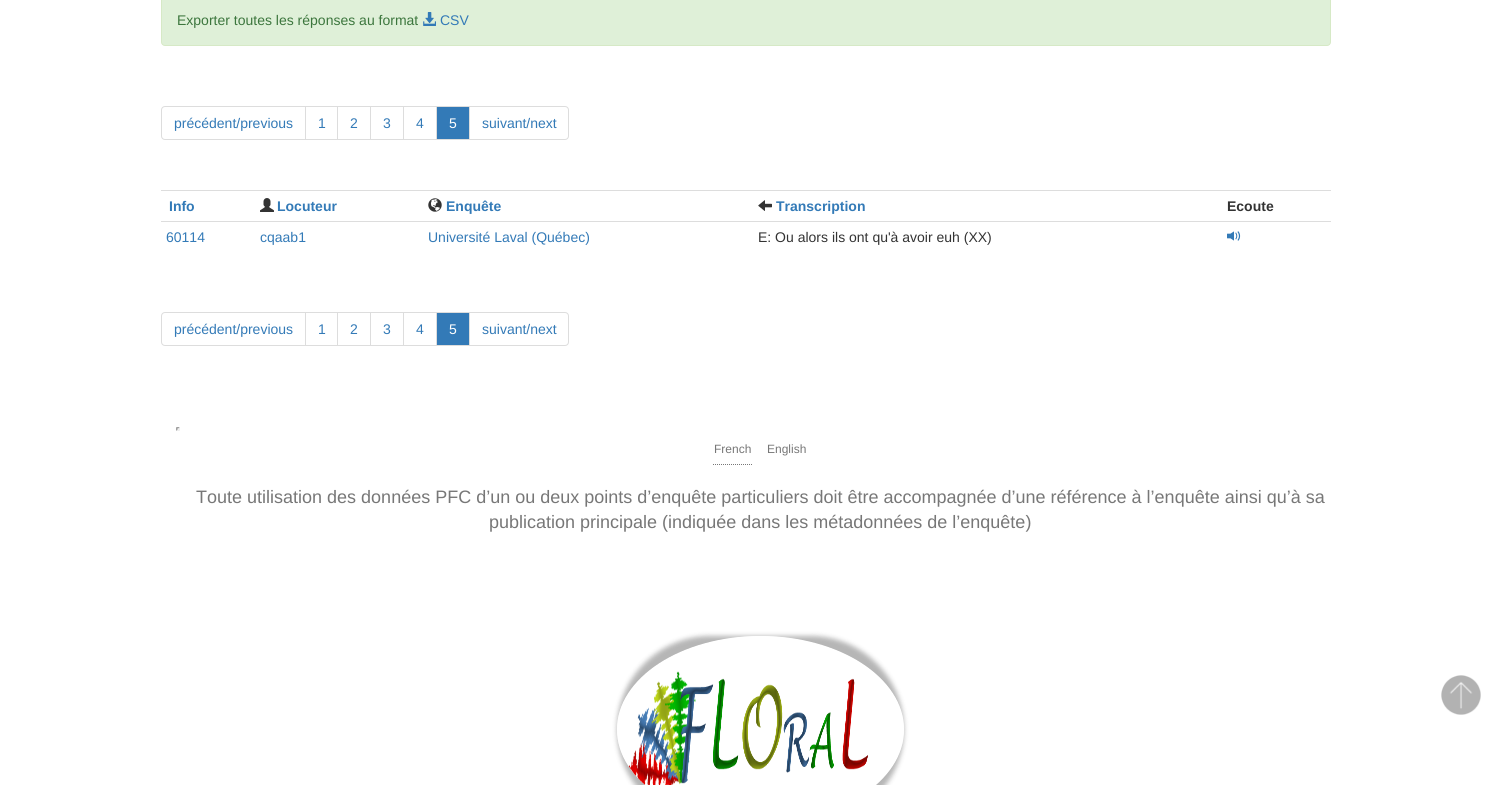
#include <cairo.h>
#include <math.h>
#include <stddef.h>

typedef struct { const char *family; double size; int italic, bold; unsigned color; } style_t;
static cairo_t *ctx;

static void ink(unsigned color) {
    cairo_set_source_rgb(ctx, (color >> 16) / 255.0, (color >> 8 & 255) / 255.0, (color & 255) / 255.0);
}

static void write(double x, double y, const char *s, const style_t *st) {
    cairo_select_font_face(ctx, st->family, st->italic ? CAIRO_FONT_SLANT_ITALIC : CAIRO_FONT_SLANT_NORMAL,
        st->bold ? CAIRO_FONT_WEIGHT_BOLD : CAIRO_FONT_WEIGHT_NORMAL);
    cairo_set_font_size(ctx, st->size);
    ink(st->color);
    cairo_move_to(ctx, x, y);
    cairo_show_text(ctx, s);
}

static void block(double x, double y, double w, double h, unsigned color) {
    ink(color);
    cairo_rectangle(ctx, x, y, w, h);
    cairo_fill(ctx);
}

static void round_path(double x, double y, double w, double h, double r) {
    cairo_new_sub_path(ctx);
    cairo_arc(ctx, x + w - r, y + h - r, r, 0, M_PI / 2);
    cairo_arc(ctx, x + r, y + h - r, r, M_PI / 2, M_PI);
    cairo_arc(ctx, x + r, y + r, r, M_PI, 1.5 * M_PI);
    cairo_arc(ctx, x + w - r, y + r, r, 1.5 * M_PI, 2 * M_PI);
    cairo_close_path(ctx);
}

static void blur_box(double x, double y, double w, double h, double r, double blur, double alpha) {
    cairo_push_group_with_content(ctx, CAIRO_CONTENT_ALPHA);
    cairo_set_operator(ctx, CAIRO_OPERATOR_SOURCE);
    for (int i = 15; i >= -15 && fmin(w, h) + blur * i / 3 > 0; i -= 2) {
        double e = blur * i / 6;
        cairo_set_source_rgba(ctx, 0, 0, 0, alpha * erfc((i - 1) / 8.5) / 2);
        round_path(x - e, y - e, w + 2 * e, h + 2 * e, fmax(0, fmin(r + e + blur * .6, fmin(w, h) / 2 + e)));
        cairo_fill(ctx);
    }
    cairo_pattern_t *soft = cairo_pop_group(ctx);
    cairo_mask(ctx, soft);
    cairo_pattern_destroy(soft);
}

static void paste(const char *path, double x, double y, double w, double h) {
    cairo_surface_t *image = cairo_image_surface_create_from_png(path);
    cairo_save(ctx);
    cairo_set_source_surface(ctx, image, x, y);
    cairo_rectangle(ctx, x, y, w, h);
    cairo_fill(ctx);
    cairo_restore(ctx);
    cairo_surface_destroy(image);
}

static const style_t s1 = {"Liberation Sans", 14, 0, 0, 0x3c763d};
static const style_t s2 = {"Liberation Sans", 14, 0, 0, 0x337ab7};
static const style_t s3 = {"Liberation Sans", 14, 0, 0, 0xffffff};
static const style_t s4 = {"Liberation Sans", 14, 0, 1, 0x337ab7};
static const style_t s5 = {"Liberation Sans", 14, 0, 1, 0x333333};
static const style_t s6 = {"Liberation Sans", 14, 0, 0, 0x333333};
static const style_t s7 = {"Liberation Sans", 12, 0, 0, 0x777777};
static const style_t s8 = {"Liberation Sans", 18, 0, 0, 0x777777};

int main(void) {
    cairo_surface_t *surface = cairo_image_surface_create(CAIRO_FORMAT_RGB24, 1491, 785);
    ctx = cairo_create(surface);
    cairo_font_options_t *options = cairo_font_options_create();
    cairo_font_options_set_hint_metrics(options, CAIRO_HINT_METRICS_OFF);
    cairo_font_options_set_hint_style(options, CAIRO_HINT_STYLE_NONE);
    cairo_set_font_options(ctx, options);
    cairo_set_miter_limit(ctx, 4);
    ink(0xffffff);
    cairo_paint(ctx);
    ink(0xdff0d8);
    round_path(161.5, -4.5, 1169, 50, 3.5);
    cairo_fill_preserve(ctx);
    ink(0xd6e9c6);
    cairo_set_line_width(ctx, 1);
    cairo_stroke(ctx);
    write(177, 25, "Exporter toutes les réponses au format", &s1);
    paste("pic1.png", 423, 12, 13, 14);
    write(440, 25, "CSV", &s2);
    cairo_new_path(ctx);
    cairo_move_to(ctx, 165, 106.5);
    cairo_line_to(ctx, 305.5, 106.5);
    cairo_line_to(ctx, 305.5, 139.5);
    cairo_line_to(ctx, 165, 139.5);
    cairo_curve_to(ctx, 163, 139.5, 161.5, 138, 161.5, 136);
    cairo_line_to(ctx, 161.5, 110);
    cairo_curve_to(ctx, 161.5, 108, 163, 106.5, 165, 106.5);
    cairo_close_path(ctx);
    ink(0xdddddd);
    cairo_stroke(ctx);
    write(174, 128, "précédent/previous", &s2);
    cairo_rectangle(ctx, 305.5, 106.5, 32, 33);
    ink(0xdddddd);
    cairo_stroke(ctx);
    write(318, 128, "1", &s2);
    cairo_rectangle(ctx, 337.5, 106.5, 33, 33);
    ink(0xdddddd);
    cairo_stroke(ctx);
    write(350, 128, "2", &s2);
    cairo_rectangle(ctx, 370.5, 106.5, 33, 33);
    ink(0xdddddd);
    cairo_stroke(ctx);
    write(383, 128, "3", &s2);
    cairo_rectangle(ctx, 403.5, 106.5, 33, 33);
    ink(0xdddddd);
    cairo_stroke(ctx);
    write(416, 128, "4", &s2);
    cairo_new_path(ctx);
    cairo_move_to(ctx, 469.5, 106.5);
    cairo_line_to(ctx, 565, 106.5);
    cairo_curve_to(ctx, 567, 106.5, 568.5, 108, 568.5, 110);
    cairo_line_to(ctx, 568.5, 136);
    cairo_curve_to(ctx, 568.5, 138, 567, 139.5, 565, 139.5);
    cairo_line_to(ctx, 469.5, 139.5);
    cairo_close_path(ctx);
    ink(0xdddddd);
    cairo_stroke(ctx);
    ink(0x337ab7);
    cairo_rectangle(ctx, 436.5, 106.5, 33, 33);
    cairo_fill_preserve(ctx);
    ink(0xdddddd);
    cairo_stroke(ctx);
    write(449, 128, "5", &s3);
    write(482, 128, "suivant/next", &s2);
    write(169, 211, "Info", &s4);
    paste("pic2.png", 260, 198, 14, 14);
    write(277, 211, "Locuteur", &s4);
    paste("pic3.png", 428, 198, 14, 14);
    write(446, 211, "Enquête", &s4);
    paste("pic4.png", 758, 200, 14, 11);
    write(776, 211, "Transcription", &s4);
    block(161, 190, 1170, 1, 0xdddddd);
    write(1227, 211, "Ecoute", &s5);
    block(161, 221, 1170, 1, 0xdddddd);
    paste("pic5.png", 1227, 231, 14, 10);
    write(166, 242, "60114", &s2);
    write(260, 242, "cqaab1", &s2);
    write(428, 242, "Université Laval (Québec)", &s2);
    write(758, 242, "E: Ou alors ils ont qu'à avoir euh (XX)", &s6);
    cairo_new_path(ctx);
    cairo_move_to(ctx, 165, 312.5);
    cairo_line_to(ctx, 305.5, 312.5);
    cairo_line_to(ctx, 305.5, 345.5);
    cairo_line_to(ctx, 165, 345.5);
    cairo_curve_to(ctx, 163, 345.5, 161.5, 344, 161.5, 342);
    cairo_line_to(ctx, 161.5, 316);
    cairo_curve_to(ctx, 161.5, 314, 163, 312.5, 165, 312.5);
    cairo_close_path(ctx);
    ink(0xdddddd);
    cairo_stroke(ctx);
    write(174, 334, "précédent/previous", &s2);
    cairo_rectangle(ctx, 305.5, 312.5, 32, 33);
    ink(0xdddddd);
    cairo_stroke(ctx);
    write(318, 334, "1", &s2);
    cairo_rectangle(ctx, 337.5, 312.5, 33, 33);
    ink(0xdddddd);
    cairo_stroke(ctx);
    write(350, 334, "2", &s2);
    cairo_rectangle(ctx, 370.5, 312.5, 33, 33);
    ink(0xdddddd);
    cairo_stroke(ctx);
    write(383, 334, "3", &s2);
    cairo_rectangle(ctx, 403.5, 312.5, 33, 33);
    ink(0xdddddd);
    cairo_stroke(ctx);
    write(416, 334, "4", &s2);
    cairo_new_path(ctx);
    cairo_move_to(ctx, 469.5, 312.5);
    cairo_line_to(ctx, 565, 312.5);
    cairo_curve_to(ctx, 567, 312.5, 568.5, 314, 568.5, 316);
    cairo_line_to(ctx, 568.5, 342);
    cairo_curve_to(ctx, 568.5, 344, 567, 345.5, 565, 345.5);
    cairo_line_to(ctx, 469.5, 345.5);
    cairo_close_path(ctx);
    ink(0xdddddd);
    cairo_stroke(ctx);
    ink(0x337ab7);
    cairo_rectangle(ctx, 436.5, 312.5, 33, 33);
    cairo_fill_preserve(ctx);
    ink(0xdddddd);
    cairo_stroke(ctx);
    write(449, 334, "5", &s3);
    write(482, 334, "suivant/next", &s2);
    ink(0x9f9f9f);
    cairo_new_path(ctx);
    cairo_move_to(ctx, 176, 427);
    cairo_line_to(ctx, 180, 427);
    cairo_line_to(ctx, 178, 429);
    cairo_close_path(ctx);
    cairo_fill(ctx);
    ink(0xeeeeee);
    cairo_new_path(ctx);
    cairo_move_to(ctx, 180, 427);
    cairo_line_to(ctx, 180, 431);
    cairo_line_to(ctx, 178, 429);
    cairo_close_path(ctx);
    cairo_fill(ctx);
    cairo_new_path(ctx);
    cairo_move_to(ctx, 180, 431);
    cairo_line_to(ctx, 176, 431);
    cairo_line_to(ctx, 178, 429);
    cairo_close_path(ctx);
    cairo_fill(ctx);
    ink(0x9f9f9f);
    cairo_new_path(ctx);
    cairo_move_to(ctx, 176, 431);
    cairo_line_to(ctx, 176, 427);
    cairo_line_to(ctx, 178, 429);
    cairo_close_path(ctx);
    cairo_fill(ctx);
    cairo_new_path(ctx);
    cairo_move_to(ctx, 713, 464.5);
    cairo_line_to(ctx, 753, 464.5);
    ink(0x777777);
    cairo_set_dash(ctx, (double[]){1, 1}, 2, 0);
    cairo_stroke(ctx);
    write(714, 453, "French", &s7);
    write(767, 453, "English", &s7);
    write(196, 503, "Toute utilisation des données PFC d’un ou deux points d’enquête particuliers doit être accompagnée d’une référence à l’enquête ainsi qu’à sa", &s8);
    write(489, 528, "publication principale (indiquée dans les métadonnées de l’enquête)", &s8);
    cairo_save(ctx);
    cairo_set_fill_rule(ctx, CAIRO_FILL_RULE_EVEN_ODD);
    cairo_new_path(ctx);
    cairo_move_to(ctx, 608, 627);
    cairo_line_to(ctx, 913, 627);
    cairo_line_to(ctx, 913, 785);
    cairo_line_to(ctx, 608, 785);
    cairo_close_path(ctx);
    cairo_move_to(ctx, 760.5, 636);
    cairo_curve_to(ctx, 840, 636, 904, 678, 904, 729.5);
    cairo_curve_to(ctx, 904, 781, 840, 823, 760.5, 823);
    cairo_curve_to(ctx, 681, 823, 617, 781, 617, 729.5);
    cairo_curve_to(ctx, 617, 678, 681, 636, 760.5, 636);
    cairo_close_path(ctx);
    cairo_clip(ctx);
    ink(0x000000);
    blur_box(617, 636, 287, 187, 93.5, 2.5, 0.29);
    cairo_restore(ctx);
    paste("pic6.png", 628, 671, 240, 114);
    paste("pic7.png", 1441, 675, 40, 40);
    cairo_surface_write_to_png(surface, "screenshot.png");
    cairo_font_options_destroy(options);
    cairo_destroy(ctx);
    cairo_surface_destroy(surface);
    return 0;
}
